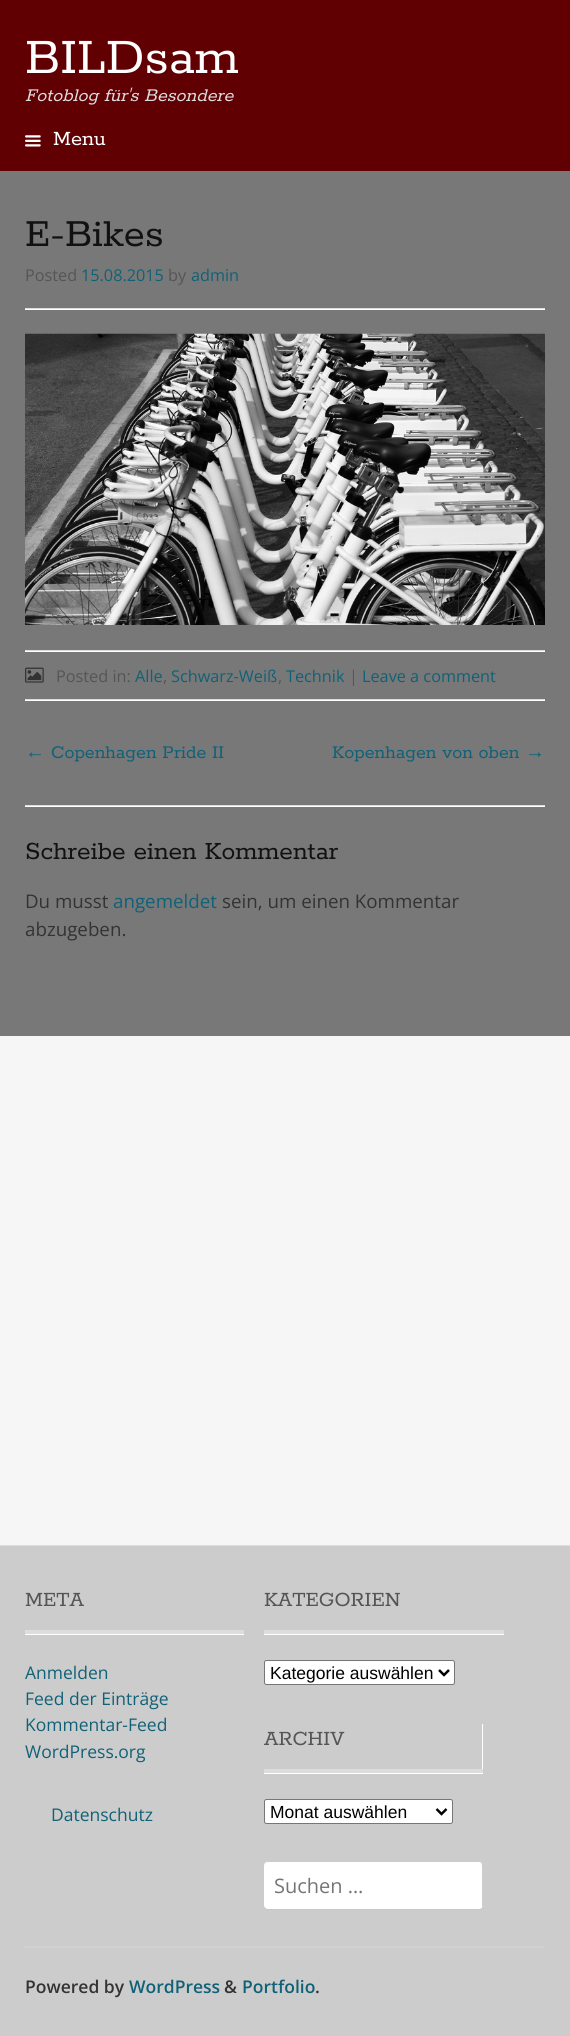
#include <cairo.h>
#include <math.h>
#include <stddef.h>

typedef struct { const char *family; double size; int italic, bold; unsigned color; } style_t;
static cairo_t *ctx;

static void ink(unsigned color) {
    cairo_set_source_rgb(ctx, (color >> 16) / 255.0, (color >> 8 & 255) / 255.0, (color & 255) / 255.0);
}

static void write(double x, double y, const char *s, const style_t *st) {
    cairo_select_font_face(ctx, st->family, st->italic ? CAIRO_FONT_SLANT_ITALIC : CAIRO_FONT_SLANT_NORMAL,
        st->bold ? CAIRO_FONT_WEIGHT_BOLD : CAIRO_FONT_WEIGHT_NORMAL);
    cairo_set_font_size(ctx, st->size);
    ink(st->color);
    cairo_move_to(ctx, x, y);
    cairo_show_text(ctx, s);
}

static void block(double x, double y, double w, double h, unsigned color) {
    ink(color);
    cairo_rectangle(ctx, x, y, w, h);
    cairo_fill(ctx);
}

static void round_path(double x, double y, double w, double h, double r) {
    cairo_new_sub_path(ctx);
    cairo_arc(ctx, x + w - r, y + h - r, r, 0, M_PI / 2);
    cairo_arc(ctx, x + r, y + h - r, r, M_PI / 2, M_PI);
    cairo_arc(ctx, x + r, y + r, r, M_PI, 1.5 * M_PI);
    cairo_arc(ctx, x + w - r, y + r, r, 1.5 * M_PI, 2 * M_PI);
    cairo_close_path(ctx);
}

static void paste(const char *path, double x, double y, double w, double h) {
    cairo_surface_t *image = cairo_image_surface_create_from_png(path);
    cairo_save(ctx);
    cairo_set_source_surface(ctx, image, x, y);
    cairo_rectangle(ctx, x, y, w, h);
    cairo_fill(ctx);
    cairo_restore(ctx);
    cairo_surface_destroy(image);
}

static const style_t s1 = {"Rokkitt", 55, 0, 0, 0xffffff};
static const style_t s2 = {"Rokkitt", 20, 1, 0, 0xdddddd};
static const style_t s3 = {"Rokkitt", 22.5, 0, 0, 0xffffff};
static const style_t s4 = {"Rokkitt", 42.5, 0, 0, 0x111111};
static const style_t s5 = {"Open Sans", 16.25, 0, 0, 0x555555};
static const style_t s6 = {"Open Sans", 16.25, 0, 0, 0x106177};
static const style_t s7 = {"Liberation Sans", 20, 0, 0, 0x106177};
static const style_t s8 = {"Rokkitt", 20, 0, 0, 0x106177};
static const style_t s9 = {"Rokkitt", 27.5, 0, 0, 0x111111};
static const style_t s10 = {"Open Sans", 18.75, 0, 0, 0x333333};
static const style_t s11 = {"Open Sans", 18.75, 0, 0, 0x106177};
static const style_t s12 = {"Rokkitt", 22.5, 0, 0, 0x555555};
static const style_t s13 = {"Open Sans", 17.5, 0, 0, 0x106177};
static const style_t s14 = {"Liberation Sans", 17.5, 0, 0, 0x000000};
static const style_t s15 = {"Open Sans", 20, 0, 0, 0x757575};
static const style_t s16 = {"Open Sans SemiBold", 17.5, 0, 0, 0x333333};
static const style_t s17 = {"Open Sans SemiBold", 17.5, 0, 0, 0x106177};

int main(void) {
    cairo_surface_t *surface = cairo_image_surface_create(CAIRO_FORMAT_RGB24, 570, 2036);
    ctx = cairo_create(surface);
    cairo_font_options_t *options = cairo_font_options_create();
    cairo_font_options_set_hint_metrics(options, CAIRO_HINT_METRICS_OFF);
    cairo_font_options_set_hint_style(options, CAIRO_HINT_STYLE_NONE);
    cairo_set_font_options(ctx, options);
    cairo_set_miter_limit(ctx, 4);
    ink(0xf6f6f6);
    cairo_paint(ctx);
    block(0, 0, 570, 171, 0x600003);
    write(25, 73, "BILDsam", &s1);
    write(25, 101, "Fotoblog für's Besondere", &s2);
    paste("pic1.png", 25, 135, 16, 12);
    write(53, 145, "Menu", &s3);
    block(0, 171, 570, 865, 0x787878);
    block(25, 309, 520, 1, 0xffffff);
    block(25, 308, 520, 1, 0xdddddd);
    write(25, 246, "E-Bikes", &s4);
    write(25, 281, "Posted", &s5);
    write(81, 281, "15.08.2015", &s6);
    write(168, 281, "by", &s5);
    write(191, 281, "admin", &s6);
    paste("pic2.png", 25, 333, 520, 292);
    block(25, 651, 520, 1, 0xffffff);
    block(25, 650, 520, 1, 0xdddddd);
    paste("pic3.png", 25, 667, 19, 16);
    write(56, 682, "Posted in:", &s5);
    write(135, 682, "Alle", &s6);
    write(163, 682, ",", &s5);
    write(171, 682, "Schwarz-Weiß", &s6);
    write(278, 682, ",", &s5);
    write(286, 682, "Technik", &s6);
    write(349, 682, "|", &s5);
    write(362, 682, "Leave a comment", &s6);
    block(25, 700, 520, 1, 0xffffff);
    block(25, 699, 520, 1, 0xdddddd);
    write(25, 758, "←", &s7);
    write(51, 758, "Copenhagen Pride II", &s8);
    write(332, 758, "Kopenhagen von oben", &s8);
    write(525, 758, "→", &s7);
    block(25, 806, 520, 1, 0xffffff);
    block(25, 805, 520, 1, 0xdddddd);
    write(25, 859, "Schreibe einen Kommentar", &s9);
    write(25, 908, "Du musst", &s10);
    write(113, 908, "angemeldet", &s11);
    write(222, 908, "sein, um einen Kommentar", &s10);
    write(25, 936, "abzugeben.", &s10);
    block(0, 1546, 570, 490, 0xcccccc);
    block(0, 1545, 570, 1, 0xdddddd);
    cairo_new_path(ctx);
    cairo_move_to(ctx, 25, 1947);
    cairo_line_to(ctx, 545, 1947);
    cairo_set_line_width(ctx, 1.2);
    cairo_set_dash(ctx, (double[]){1.25, 1.25}, 2, 0);
    cairo_stroke(ctx);
    ink(0xffffff);
    cairo_new_path(ctx);
    cairo_move_to(ctx, 25, 1634);
    cairo_line_to(ctx, 25, 1635);
    cairo_line_to(ctx, 244, 1635);
    cairo_line_to(ctx, 244, 1585);
    cairo_line_to(ctx, 244, 1634);
    cairo_close_path(ctx);
    cairo_fill(ctx);
    block(25, 1630, 219, 4, 0xdddddd);
    write(25, 1606, "META", &s12);
    write(25, 1679, "Anmelden", &s13);
    write(25, 1705, "Feed der Einträge", &s13);
    write(25, 1731, "Kommentar-Feed", &s13);
    write(25, 1758, "WordPress.org", &s13);
    write(51, 1821, "Datenschutz", &s13);
    ink(0xffffff);
    cairo_new_path(ctx);
    cairo_move_to(ctx, 264, 1634);
    cairo_line_to(ctx, 264, 1635);
    cairo_line_to(ctx, 504, 1635);
    cairo_line_to(ctx, 504, 1585);
    cairo_line_to(ctx, 504, 1634);
    cairo_close_path(ctx);
    cairo_fill(ctx);
    block(264, 1630, 240, 4, 0xdddddd);
    write(264, 1606, "KATEGORIEN", &s12);
    ink(0xffffff);
    round_path(264.5, 1660.5, 190, 24, 2);
    cairo_fill_preserve(ctx);
    ink(0x767676);
    cairo_set_line_width(ctx, 1);
    cairo_set_dash(ctx, NULL, 0, 0);
    cairo_stroke(ctx);
    cairo_new_path(ctx);
    cairo_move_to(ctx, 439, 1670);
    cairo_line_to(ctx, 444, 1675);
    cairo_line_to(ctx, 449, 1670);
    ink(0x000000);
    cairo_set_line_width(ctx, 2.5);
    cairo_stroke(ctx);
    write(270, 1679, "Kategorie auswählen", &s14);
    ink(0xffffff);
    cairo_new_path(ctx);
    cairo_move_to(ctx, 264, 1772);
    cairo_line_to(ctx, 264, 1774);
    cairo_line_to(ctx, 483, 1774);
    cairo_line_to(ctx, 483, 1724);
    cairo_line_to(ctx, 482, 1724);
    cairo_line_to(ctx, 482, 1772);
    cairo_close_path(ctx);
    cairo_fill(ctx);
    block(264, 1769, 219, 4, 0xdddddd);
    write(264, 1745, "ARCHIV", &s12);
    ink(0xffffff);
    round_path(264.5, 1799.5, 188, 24, 2);
    cairo_fill_preserve(ctx);
    ink(0x767676);
    cairo_set_line_width(ctx, 1);
    cairo_stroke(ctx);
    cairo_new_path(ctx);
    cairo_move_to(ctx, 436.5, 1809);
    cairo_line_to(ctx, 441.5, 1814);
    cairo_line_to(ctx, 446.5, 1809);
    ink(0x000000);
    cairo_set_line_width(ctx, 2.5);
    cairo_stroke(ctx);
    write(270, 1818, "Monat auswählen", &s14);
    ink(0xc7c7c7);
    cairo_new_path(ctx);
    cairo_move_to(ctx, 264, 1906);
    cairo_curve_to(ctx, 264, 1908, 266, 1910, 268, 1910);
    cairo_line_to(ctx, 479, 1910);
    cairo_curve_to(ctx, 481, 1910, 483, 1908, 483, 1906);
    cairo_line_to(ctx, 483, 1867);
    cairo_line_to(ctx, 482, 1865);
    cairo_line_to(ctx, 482, 1905);
    cairo_curve_to(ctx, 482, 1907, 481, 1909, 479, 1909);
    cairo_line_to(ctx, 268, 1909);
    cairo_curve_to(ctx, 266, 1909, 265, 1908, 264, 1906);
    cairo_close_path(ctx);
    cairo_fill(ctx);
    ink(0xffffff);
    round_path(264, 1861, 219, 48, 4);
    cairo_fill(ctx);
    cairo_set_source_rgba(ctx, 0, 0, 0, 0.2);
    cairo_new_path(ctx);
    cairo_move_to(ctx, 268, 1862);
    cairo_line_to(ctx, 479, 1862);
    cairo_curve_to(ctx, 481, 1862, 482, 1864, 482, 1866);
    cairo_line_to(ctx, 482, 1908);
    cairo_curve_to(ctx, 482, 1907, 483, 1906, 483, 1905);
    cairo_line_to(ctx, 483, 1865);
    cairo_curve_to(ctx, 483, 1863, 481, 1861, 479, 1861);
    cairo_line_to(ctx, 268, 1861);
    cairo_curve_to(ctx, 266, 1861, 264, 1863, 264, 1865);
    cairo_line_to(ctx, 264, 1866);
    cairo_curve_to(ctx, 264, 1864, 265, 1862, 268, 1862);
    cairo_close_path(ctx);
    cairo_fill(ctx);
    write(274, 1893, "Suchen …", &s15);
    write(25, 1993, "Powered by", &s16);
    write(129, 1993, "WordPress", &s17);
    write(224, 1993, "&", &s16);
    write(242, 1993, "Portfolio", &s17);
    write(315, 1993, ".", &s16);
    cairo_surface_write_to_png(surface, "screenshot.png");
    cairo_font_options_destroy(options);
    cairo_destroy(ctx);
    cairo_surface_destroy(surface);
    return 0;
}
